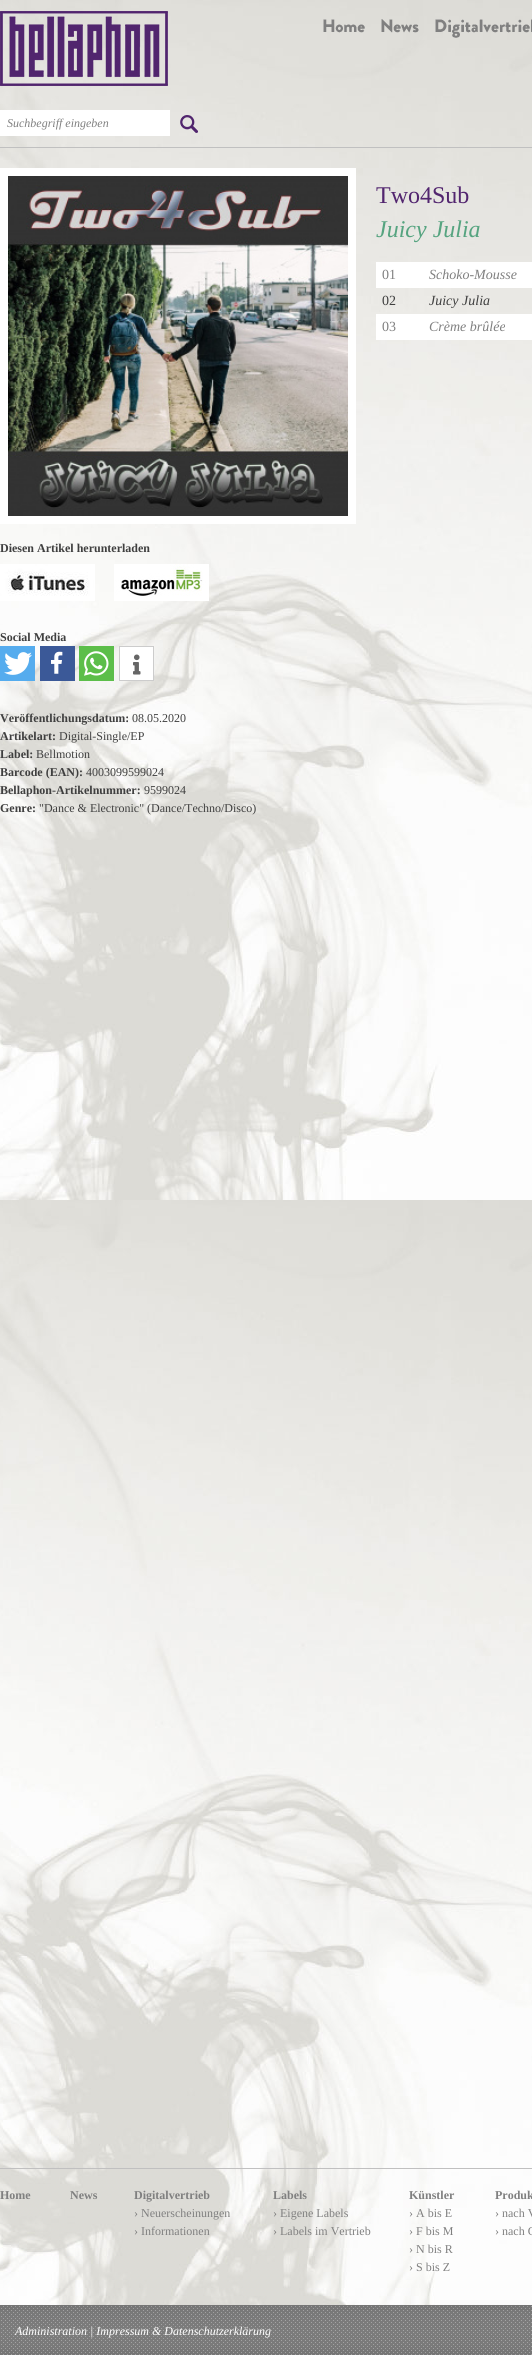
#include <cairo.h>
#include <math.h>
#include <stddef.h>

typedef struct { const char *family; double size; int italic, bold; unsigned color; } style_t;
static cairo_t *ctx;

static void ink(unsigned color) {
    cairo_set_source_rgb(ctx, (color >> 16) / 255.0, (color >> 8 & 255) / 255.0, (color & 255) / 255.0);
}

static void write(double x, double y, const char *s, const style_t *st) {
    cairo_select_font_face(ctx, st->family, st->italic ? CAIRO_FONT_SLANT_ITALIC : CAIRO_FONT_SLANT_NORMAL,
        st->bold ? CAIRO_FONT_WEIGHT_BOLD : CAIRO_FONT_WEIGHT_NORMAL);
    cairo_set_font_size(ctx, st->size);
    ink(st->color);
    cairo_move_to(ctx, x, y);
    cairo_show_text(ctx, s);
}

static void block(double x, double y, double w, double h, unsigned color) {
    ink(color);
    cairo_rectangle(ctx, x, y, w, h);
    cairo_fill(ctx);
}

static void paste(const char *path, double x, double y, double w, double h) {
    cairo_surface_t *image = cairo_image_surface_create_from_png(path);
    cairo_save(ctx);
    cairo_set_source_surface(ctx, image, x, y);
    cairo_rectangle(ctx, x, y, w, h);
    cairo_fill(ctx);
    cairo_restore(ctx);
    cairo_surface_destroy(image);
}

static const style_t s1 = {"Liberation Serif", 12, 1, 0, 0x808080};
static const style_t s2 = {"Liberation Serif", 24, 0, 0, 0x52256f};
static const style_t s3 = {"Liberation Serif", 24, 1, 0, 0x56a480};
static const style_t s4 = {"Liberation Serif", 14, 0, 0, 0x808080};
static const style_t s5 = {"Liberation Serif", 14, 1, 0, 0x808080};
static const style_t s6 = {"Liberation Serif", 14, 0, 0, 0x3f3f3f};
static const style_t s7 = {"Liberation Serif", 14, 1, 0, 0x3f3f3f};
static const style_t s8 = {"Liberation Serif", 12, 0, 1, 0x3f3f3f};
static const style_t s9 = {"Liberation Serif", 12, 0, 0, 0x3f3f3f};
static const style_t s10 = {"Liberation Serif", 12, 0, 1, 0x808080};
static const style_t s11 = {"Liberation Serif", 12, 0, 0, 0x808080};
static const style_t s12 = {"Liberation Serif", 12, 1, 0, 0xffffff};

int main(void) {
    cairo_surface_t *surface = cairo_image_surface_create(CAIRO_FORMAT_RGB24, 532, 2355);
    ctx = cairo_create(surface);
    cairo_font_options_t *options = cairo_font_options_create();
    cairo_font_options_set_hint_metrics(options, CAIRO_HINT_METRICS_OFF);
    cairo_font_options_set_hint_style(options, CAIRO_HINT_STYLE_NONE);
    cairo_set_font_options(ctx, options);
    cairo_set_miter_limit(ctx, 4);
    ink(0xffffff);
    cairo_paint(ctx);
    paste("pic1.png", 0, 0, 532, 2305);
    block(0, 147, 532, 1, 0xc0c0c0);
    paste("pic2.png", 0, 11, 168, 75);
    paste("pic3.png", 323, 19, 42, 14);
    paste("pic4.png", 381, 19, 38, 14);
    paste("pic5.png", 435, 19, 97, 19);
    block(0, 110, 170, 26, 0xffffff);
    write(7, 127, "Suchbegriff eingeben", &s1);
    paste("pic6.png", 180, 115, 18, 18);
    write(376, 203, "Two4Sub", &s2);
    write(376, 237, "Juicy Julia", &s3);
    block(376, 262, 156, 26, 0xffffff);
    write(382, 279, "01", &s4);
    write(429, 279, "Schoko-Mousse", &s5);
    write(382, 305, "02", &s6);
    write(429, 305, "Juicy Julia", &s7);
    block(376, 314, 156, 26, 0xffffff);
    write(382, 331, "03", &s4);
    write(429, 331, "Crème brûlée", &s5);
    block(0, 168, 356, 356, 0xffffff);
    paste("pic7.png", 8, 176, 340, 340);
    write(0, 552, "Diesen Artikel herunterladen", &s8);
    paste("pic8.png", 0, 564, 95, 37);
    paste("pic9.png", 114, 564, 95, 37);
    write(0, 641, "Social Media", &s8);
    block(0, 646, 35, 35, 0x55acee);
    paste("pic10.png", 4, 652, 28, 23);
    block(40, 646, 35, 35, 0x3b5998);
    paste("pic11.png", 51, 651, 12, 23);
    block(79, 646, 35, 35, 0x5cbe4a);
    paste("pic12.png", 84, 651, 25, 25);
    cairo_rectangle(ctx, 119.5, 646.5, 34, 34);
    ink(0xcccccc);
    cairo_set_line_width(ctx, 1);
    cairo_stroke(ctx);
    block(120, 647, 33, 33, 0xffffff);
    paste("pic13.png", 133, 654, 8, 21);
    write(0, 722, "Veröffentlichungsdatum:", &s8);
    write(132, 722, "08.05.2020", &s9);
    write(0, 740, "Artikelart:", &s8);
    write(59, 740, "Digital-Single/EP", &s9);
    write(0, 758, "Label:", &s8);
    write(36, 758, "Bellmotion", &s9);
    write(0, 776, "Barcode (EAN):", &s8);
    write(86, 776, "4003099599024", &s9);
    write(0, 794, "Bellaphon-Artikelnummer:", &s8);
    write(144, 794, "9599024", &s9);
    write(0, 812, "Genre:", &s8);
    write(39, 812, "\"Dance & Electronic\" (Dance/Techno/Disco)", &s9);
    block(0, 2168, 532, 1, 0xc0c0c0);
    write(0, 2199, "Home", &s10);
    write(70, 2199, "News", &s10);
    write(134, 2199, "Digitalvertrieb", &s10);
    write(134, 2217, "› Neuerscheinungen", &s11);
    write(134, 2235, "› Informationen", &s11);
    write(273, 2199, "Labels", &s10);
    write(273, 2217, "› Eigene Labels", &s11);
    write(273, 2235, "› Labels im Vertrieb", &s11);
    write(409, 2199, "Künstler", &s10);
    write(409, 2217, "› A bis E", &s11);
    write(409, 2235, "› F bis M", &s11);
    write(409, 2253, "› N bis R", &s11);
    write(409, 2271, "› S bis Z", &s11);
    write(495, 2199, "Produk", &s10);
    write(495, 2217, "› nach V", &s11);
    write(495, 2235, "› nach G", &s11);
    paste("pic14.png", 0, 2305, 532, 50);
    write(15, 2335, "Administration | Impressum & Datenschutzerklärung", &s12);
    cairo_surface_write_to_png(surface, "screenshot.png");
    cairo_font_options_destroy(options);
    cairo_destroy(ctx);
    cairo_surface_destroy(surface);
    return 0;
}
